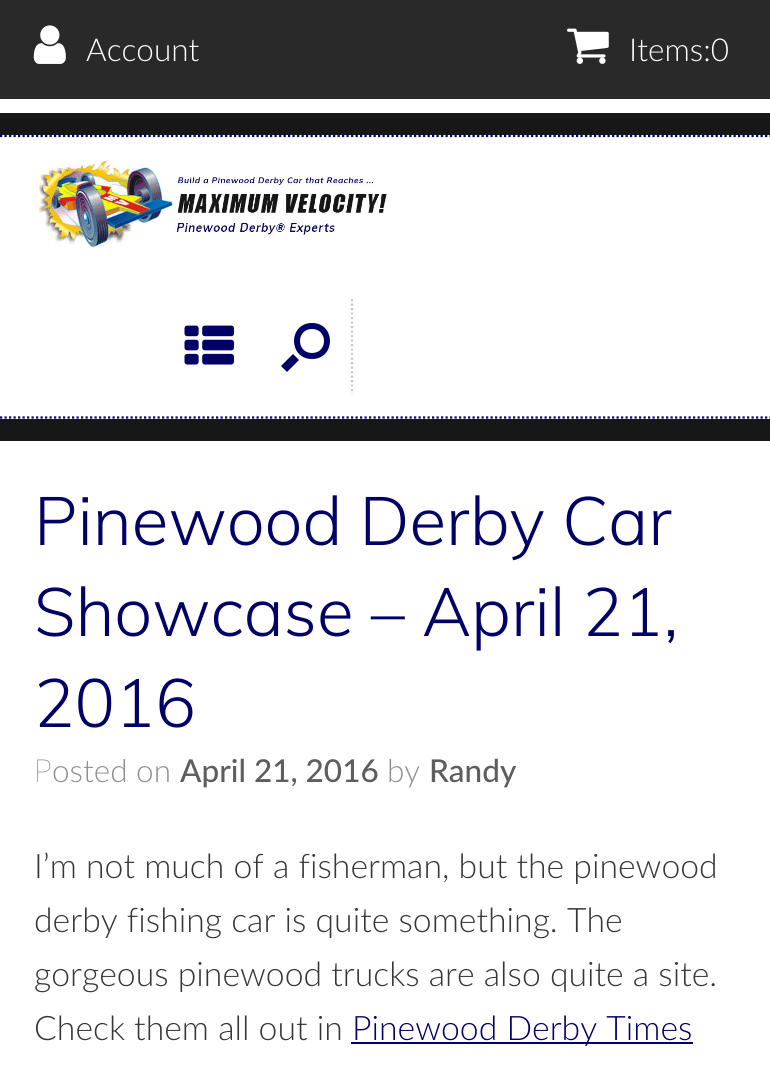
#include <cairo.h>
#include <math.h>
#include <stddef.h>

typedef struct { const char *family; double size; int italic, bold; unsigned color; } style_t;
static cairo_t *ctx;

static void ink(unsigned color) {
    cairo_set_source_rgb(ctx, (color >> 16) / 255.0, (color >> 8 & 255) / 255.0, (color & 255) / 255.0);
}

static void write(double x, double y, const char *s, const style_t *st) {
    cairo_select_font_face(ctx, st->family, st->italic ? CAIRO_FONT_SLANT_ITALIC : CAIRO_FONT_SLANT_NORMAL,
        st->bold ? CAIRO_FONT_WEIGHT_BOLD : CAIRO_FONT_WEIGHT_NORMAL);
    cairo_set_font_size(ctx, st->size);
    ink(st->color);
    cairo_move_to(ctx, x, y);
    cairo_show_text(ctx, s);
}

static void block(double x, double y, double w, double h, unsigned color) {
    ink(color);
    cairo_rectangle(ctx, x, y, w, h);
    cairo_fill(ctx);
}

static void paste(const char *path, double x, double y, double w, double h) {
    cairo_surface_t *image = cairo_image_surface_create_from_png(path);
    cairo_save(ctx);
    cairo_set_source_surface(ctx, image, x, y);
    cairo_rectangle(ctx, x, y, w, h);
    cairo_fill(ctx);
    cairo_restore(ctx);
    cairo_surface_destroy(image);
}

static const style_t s1 = {"Lato Light", 31.5, 0, 0, 0xffffff};
static const style_t s2 = {"Muli Light", 67.5, 0, 0, 0x000066};
static const style_t s3 = {"Noto Sans Thin", 31.5, 0, 0, 0x8f8f8f};
static const style_t s4 = {"Lato Light", 31.5, 0, 0, 0x8f8f8f};
static const style_t s5 = {"Lato Medium", 31.5, 0, 0, 0x5e5e5e};
static const style_t s6 = {"Lato Light", 33.75, 0, 0, 0x363636};
static const style_t s7 = {"Lato Light", 33.75, 0, 0, 0x000066};

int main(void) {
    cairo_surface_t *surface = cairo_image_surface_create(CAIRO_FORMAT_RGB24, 770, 1078);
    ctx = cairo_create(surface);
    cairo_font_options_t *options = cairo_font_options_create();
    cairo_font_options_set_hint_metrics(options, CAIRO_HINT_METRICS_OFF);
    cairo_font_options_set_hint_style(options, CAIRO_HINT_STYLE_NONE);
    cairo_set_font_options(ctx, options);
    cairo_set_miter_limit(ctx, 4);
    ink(0x171717);
    cairo_paint(ctx);
    block(0, 99, 770, 14, 0xffffff);
    block(0, 0, 770, 99, 0x292929);
    paste("pic1.png", 33, 25, 33, 39);
    write(86, 61, "Account", &s1);
    paste("pic2.png", 567, 28, 42, 36);
    write(629, 61, "Items:0", &s1);
    block(0, 135, 770, 284, 0xffffff);
    cairo_new_path(ctx);
    cairo_move_to(ctx, 0, 136);
    cairo_line_to(ctx, 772, 136);
    ink(0x000066);
    cairo_set_line_width(ctx, 2.2);
    cairo_set_dash(ctx, (double[]){2.25, 2.25}, 2, 0);
    cairo_stroke(ctx);
    cairo_new_path(ctx);
    cairo_move_to(ctx, 0, 417.5);
    cairo_line_to(ctx, 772, 417.5);
    cairo_stroke(ctx);
    paste("pic3.png", 38, 159, 349, 90);
    paste("pic4.png", 184, 325, 50, 40);
    cairo_new_path(ctx);
    cairo_move_to(ctx, 352, 299);
    cairo_line_to(ctx, 352, 394);
    ink(0xcacaca);
    cairo_stroke(ctx);
    ink(0x000066);
    cairo_new_path(ctx);
    cairo_move_to(ctx, 312, 329);
    cairo_curve_to(ctx, 328, 329, 328, 353, 312, 353);
    cairo_curve_to(ctx, 296, 353, 296, 329, 312, 329);
    cairo_close_path(ctx);
    cairo_move_to(ctx, 312, 323);
    cairo_curve_to(ctx, 288, 323, 288, 359, 312, 359);
    cairo_curve_to(ctx, 336, 359, 336, 323, 312, 323);
    cairo_close_path(ctx);
    cairo_move_to(ctx, 293, 354);
    cairo_line_to(ctx, 299, 360);
    cairo_line_to(ctx, 287, 372);
    cairo_line_to(ctx, 281, 366);
    cairo_close_path(ctx);
    cairo_fill(ctx);
    block(0, 441, 770, 637, 0xffffff);
    write(34, 545, "Pinewood Derby Car", &s2);
    write(34, 636, "Showcase – April 21,", &s2);
    write(34, 727, "2016", &s2);
    write(34, 782, "P", &s3);
    write(52, 782, "osted on", &s4);
    write(180, 782, "April 21, 2016", &s5);
    write(387, 782, "by", &s4);
    write(429, 782, "Randy", &s5);
    write(34, 878, "I’m not much of a fisherman, but the pinewood", &s6);
    write(34, 932, "derby fishing car is quite something. The", &s6);
    write(34, 986, "gorgeous pinewood trucks are also quite a site.", &s6);
    write(34, 1040, "Check them all out in", &s6);
    block(351, 1042, 342, 2, 0x000066);
    write(352, 1040, "Pinewood Derby Times", &s7);
    cairo_surface_write_to_png(surface, "screenshot.png");
    cairo_font_options_destroy(options);
    cairo_destroy(ctx);
    cairo_surface_destroy(surface);
    return 0;
}
